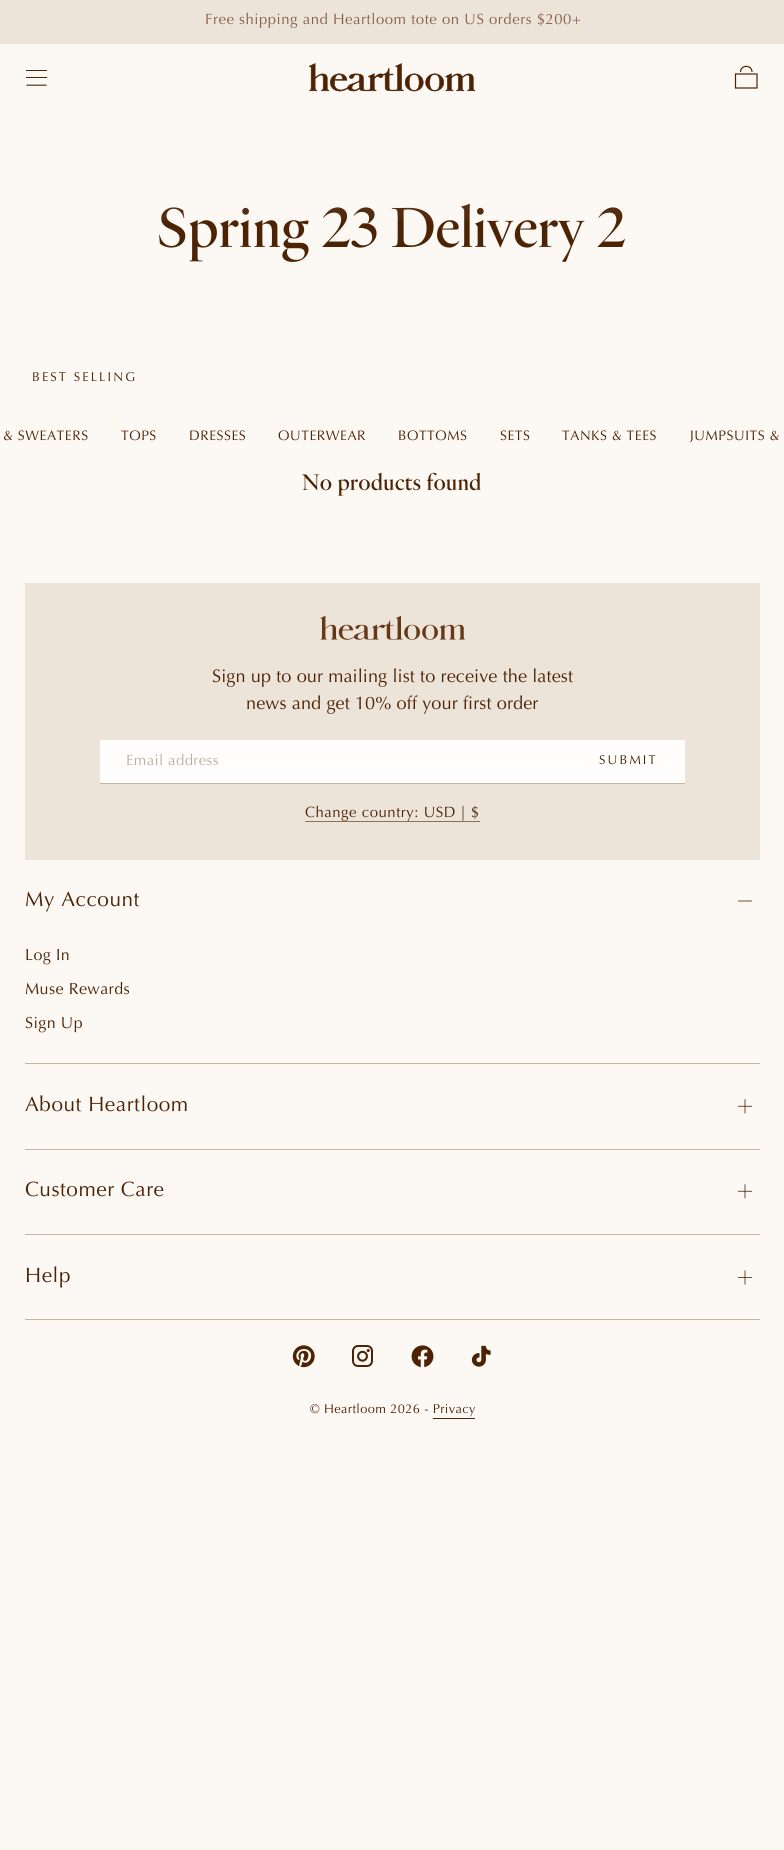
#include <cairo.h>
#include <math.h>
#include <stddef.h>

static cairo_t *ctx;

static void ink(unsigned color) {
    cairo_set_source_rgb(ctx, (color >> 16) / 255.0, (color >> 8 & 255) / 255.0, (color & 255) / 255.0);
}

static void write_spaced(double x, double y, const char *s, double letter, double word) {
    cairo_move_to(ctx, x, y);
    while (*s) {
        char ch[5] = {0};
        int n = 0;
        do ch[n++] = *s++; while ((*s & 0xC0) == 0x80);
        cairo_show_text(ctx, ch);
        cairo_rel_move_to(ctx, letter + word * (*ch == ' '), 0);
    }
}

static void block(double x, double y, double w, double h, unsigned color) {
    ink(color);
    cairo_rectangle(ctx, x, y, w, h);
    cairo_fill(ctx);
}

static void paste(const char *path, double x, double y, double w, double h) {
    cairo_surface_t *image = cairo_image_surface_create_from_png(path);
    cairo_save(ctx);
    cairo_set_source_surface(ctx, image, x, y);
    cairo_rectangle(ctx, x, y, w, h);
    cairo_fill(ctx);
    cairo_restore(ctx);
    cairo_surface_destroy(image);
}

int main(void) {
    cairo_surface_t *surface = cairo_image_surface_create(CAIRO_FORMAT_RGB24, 784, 1850);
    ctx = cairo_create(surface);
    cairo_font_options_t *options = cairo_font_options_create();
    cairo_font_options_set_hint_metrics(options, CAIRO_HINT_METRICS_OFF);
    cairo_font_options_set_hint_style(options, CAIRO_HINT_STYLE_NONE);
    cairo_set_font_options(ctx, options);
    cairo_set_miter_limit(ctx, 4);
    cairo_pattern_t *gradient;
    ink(0xfcf8f4);
    cairo_paint(ctx);
    block(0, 0, 784, 44, 0xece3d9);
    cairo_select_font_face(ctx, "Optima", CAIRO_FONT_SLANT_NORMAL, CAIRO_FONT_WEIGHT_NORMAL);
    cairo_set_font_size(ctx, 14.9);
    ink(0x876048);
    write_spaced(205, 24, "Free shipping and Heartloom tote on US orders $200+", 0.53, 0);
    paste("pic1.png", 26, 70, 21, 16);
    paste("pic2.png", 309, 63, 167, 29);
    cairo_new_path(ctx);
    cairo_move_to(ctx, 757, 88);
    cairo_line_to(ctx, 735.5, 88);
    cairo_line_to(ctx, 735.5, 74);
    cairo_line_to(ctx, 757, 74);
    cairo_close_path(ctx);
    cairo_move_to(ctx, 752, 72);
    cairo_curve_to(ctx, 752, 64.5, 740.5, 64.5, 740.5, 72);
    ink(0x4d2305);
    cairo_set_line_width(ctx, 1.2);
    cairo_stroke(ctx);
    cairo_select_font_face(ctx, "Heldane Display", CAIRO_FONT_SLANT_NORMAL, CAIRO_FONT_WEIGHT_NORMAL);
    cairo_set_font_size(ctx, 58.25);
    write_spaced(158, 247, "Spring 23 Delivery 2", 0.53, 0);
    gradient = cairo_pattern_create_linear(393, 44, 393, 231);
    cairo_pattern_add_color_stop_rgba(gradient, 0, 0.988, 0.973, 0.957, 0.42);
    cairo_pattern_add_color_stop_rgba(gradient, 1, 0.988, 0.973, 0.957, 0);
    cairo_set_source(ctx, gradient);
    cairo_pattern_destroy(gradient);
    cairo_rectangle(ctx, 161, 204, 462, 17);
    cairo_fill(ctx);
    cairo_select_font_face(ctx, "Optima", CAIRO_FONT_SLANT_NORMAL, CAIRO_FONT_WEIGHT_NORMAL);
    cairo_set_font_size(ctx, 12.75);
    ink(0x4d2305);
    write_spaced(32, 381, "BEST SELLING", 2.1, 0);
    cairo_set_font_size(ctx, 13.75);
    write_spaced(3, 440, "& SWEATERS", 0.53, 0);
    write_spaced(121, 440, "TOPS", 0.53, 0);
    write_spaced(189, 440, "DRESSES", 0.53, 0);
    write_spaced(278, 440, "OUTERWEAR", 0.53, 0);
    write_spaced(398, 440, "BOTTOMS", 0.53, 0);
    write_spaced(500, 440, "SETS", 0.53, 0);
    write_spaced(562, 440, "TANKS & TEES", 0.53, 0);
    write_spaced(690, 440, "JUMPSUITS &", 0.53, 0);
    cairo_select_font_face(ctx, "Heldane Display", CAIRO_FONT_SLANT_NORMAL, CAIRO_FONT_WEIGHT_NORMAL);
    cairo_set_font_size(ctx, 23.25);
    write_spaced(302, 490, "No products found", 0.53, 0);
    block(25, 583, 735, 277, 0xece3d9);
    paste("pic3.png", 320, 615, 146, 25);
    cairo_select_font_face(ctx, "Optima", CAIRO_FONT_SLANT_NORMAL, CAIRO_FONT_WEIGHT_NORMAL);
    cairo_set_font_size(ctx, 18.1);
    ink(0x4d2305);
    write_spaced(212, 682, "Sign up to our mailing list to receive the latest", 0.1, 0);
    write_spaced(246, 709, "news and get 10% off your first order", 0.1, 0);
    block(100, 740, 585, 43, 0xfffefc);
    block(100, 783, 585, 1, 0xcdb3a3);
    cairo_set_font_size(ctx, 14.9);
    ink(0xbeada4);
    write_spaced(126, 765, "Email address", 0.4, 0);
    cairo_set_font_size(ctx, 12.75);
    ink(0x4d2305);
    write_spaced(599, 764, "SUBMIT", 2.1, 0);
    cairo_set_font_size(ctx, 14.9);
    write_spaced(305, 817, "Change country: USD | $", 0.53, 0);
    block(305, 821, 175, 1, 0x8d705a);
    block(25, 1063, 735, 1, 0xcdb3a3);
    cairo_set_font_size(ctx, 20.75);
    ink(0x4d2305);
    write_spaced(25, 906, "My Account", 0.53, 0);
    cairo_new_path(ctx);
    cairo_move_to(ctx, 738.5, 901);
    cairo_line_to(ctx, 751.5, 901);
    cairo_set_line_width(ctx, 0.8);
    cairo_set_line_cap(ctx, CAIRO_LINE_CAP_SQUARE);
    cairo_stroke(ctx);
    cairo_set_font_size(ctx, 16);
    write_spaced(25, 960, "Log In", 0.4, 0);
    write_spaced(25, 994, "Muse Rewards", 0.4, 0);
    write_spaced(25, 1028, "Sign Up", 0.4, 0);
    block(25, 1149, 735, 1, 0xcdb3a3);
    cairo_set_font_size(ctx, 20.75);
    ink(0x4d2305);
    write_spaced(25, 1111, "About Heartloom", 0.53, 0);
    paste("pic4.png", 737, 1099, 16, 15);
    block(25, 1234, 735, 1, 0xcdb3a3);
    ink(0x4d2305);
    write_spaced(25, 1196, "Customer Care", 0.53, 0);
    paste("pic4.png", 737, 1184, 16, 15);
    block(25, 1319, 735, 1, 0xcdb3a3);
    ink(0x4d2305);
    write_spaced(25, 1282, "Help", 0.53, 0);
    paste("pic5.png", 738, 1270, 14, 15);
    paste("pic6.png", 292, 1345, 23, 23);
    paste("pic7.png", 352, 1345, 21, 22);
    paste("pic8.png", 411, 1345, 23, 23);
    paste("pic9.png", 471, 1345, 20, 22);
    cairo_set_font_size(ctx, 12.75);
    write_spaced(310, 1413, "© Heartloom 2026 - Privacy", 0.4, 0);
    block(433, 1418, 42, 1, 0x4d2305);
    cairo_surface_write_to_png(surface, "screenshot.png");
    cairo_font_options_destroy(options);
    cairo_destroy(ctx);
    cairo_surface_destroy(surface);
    return 0;
}
